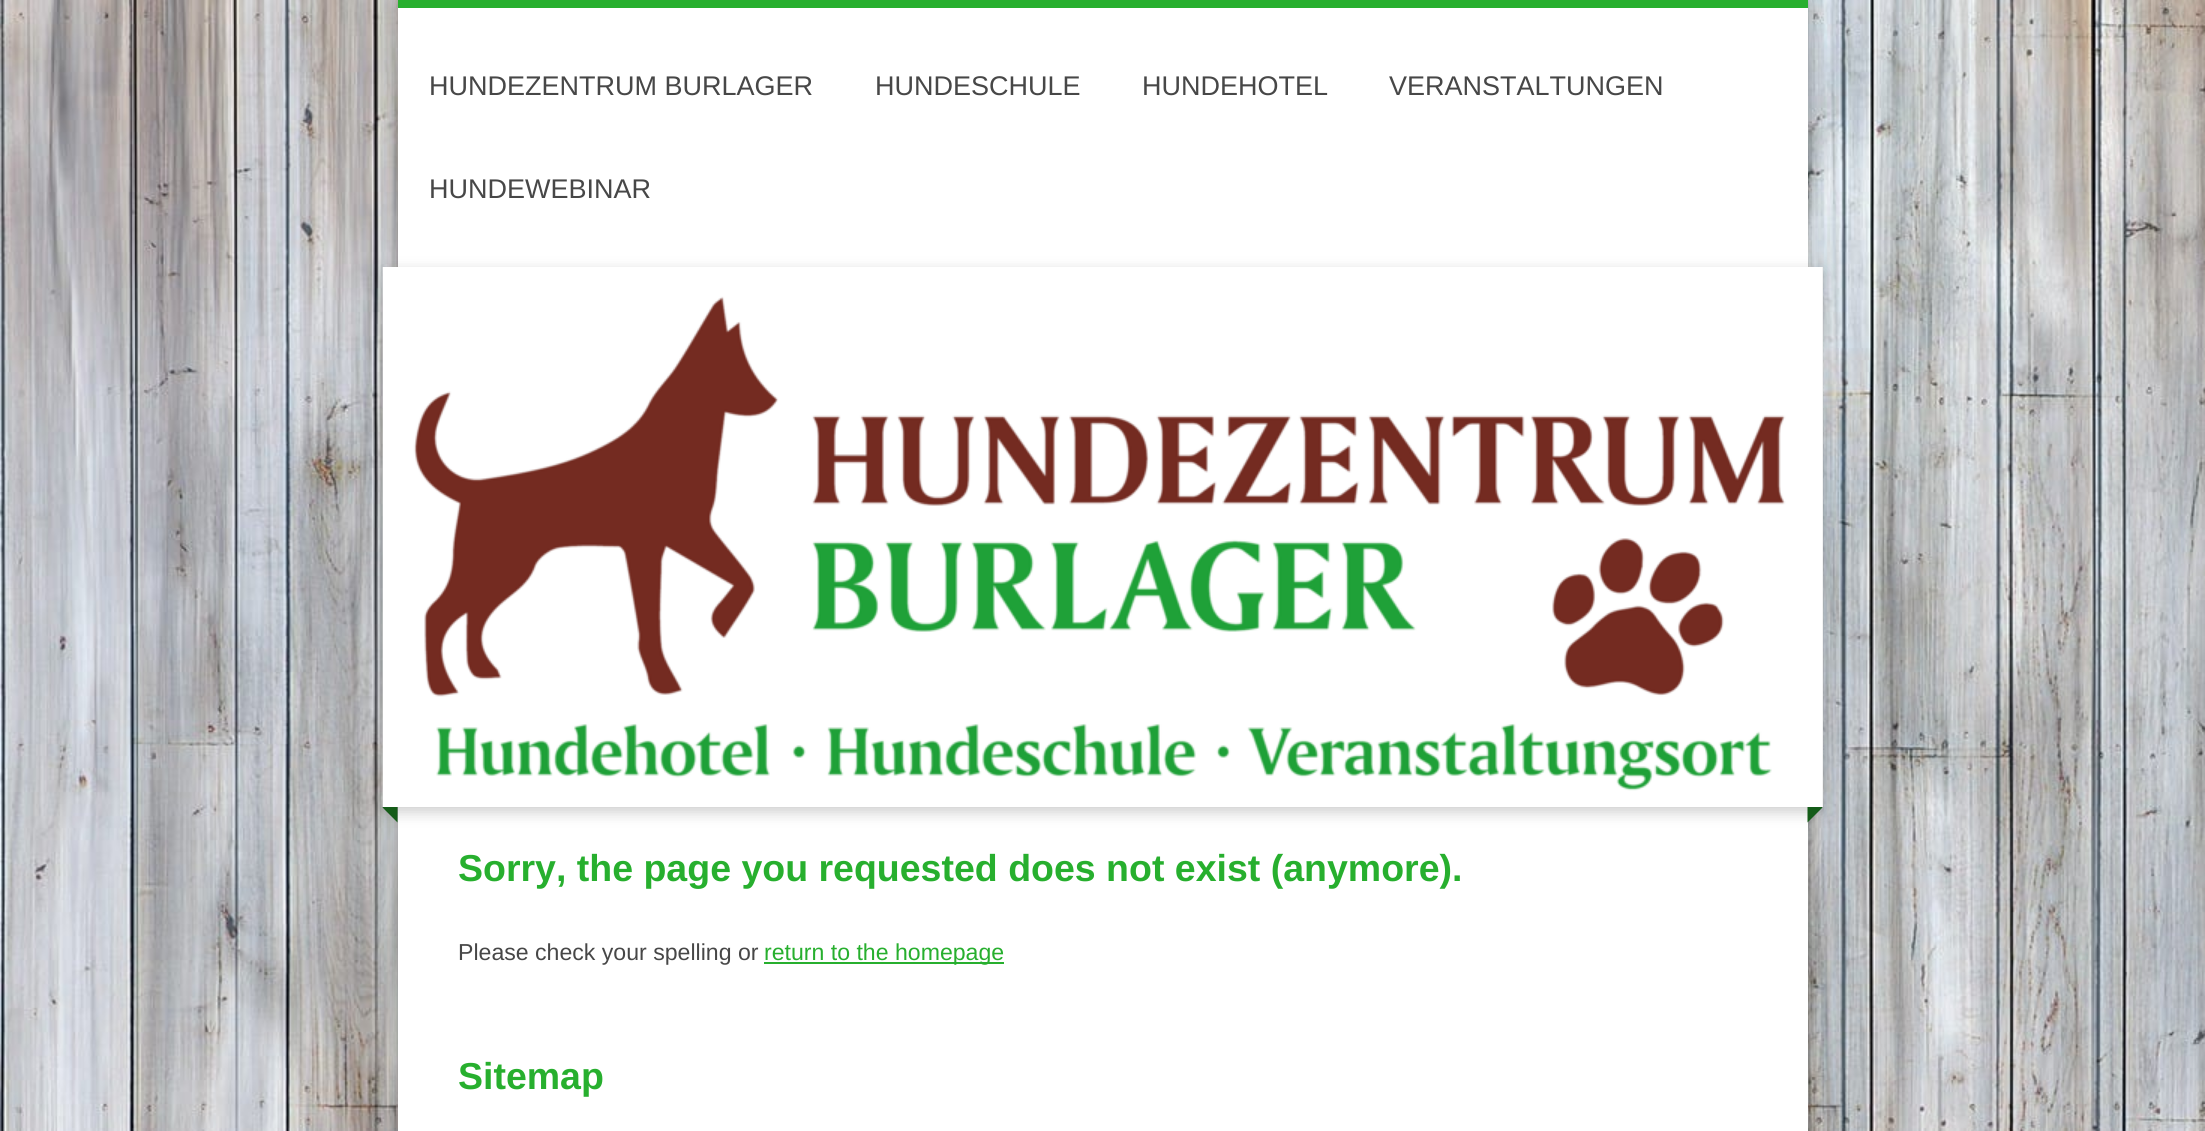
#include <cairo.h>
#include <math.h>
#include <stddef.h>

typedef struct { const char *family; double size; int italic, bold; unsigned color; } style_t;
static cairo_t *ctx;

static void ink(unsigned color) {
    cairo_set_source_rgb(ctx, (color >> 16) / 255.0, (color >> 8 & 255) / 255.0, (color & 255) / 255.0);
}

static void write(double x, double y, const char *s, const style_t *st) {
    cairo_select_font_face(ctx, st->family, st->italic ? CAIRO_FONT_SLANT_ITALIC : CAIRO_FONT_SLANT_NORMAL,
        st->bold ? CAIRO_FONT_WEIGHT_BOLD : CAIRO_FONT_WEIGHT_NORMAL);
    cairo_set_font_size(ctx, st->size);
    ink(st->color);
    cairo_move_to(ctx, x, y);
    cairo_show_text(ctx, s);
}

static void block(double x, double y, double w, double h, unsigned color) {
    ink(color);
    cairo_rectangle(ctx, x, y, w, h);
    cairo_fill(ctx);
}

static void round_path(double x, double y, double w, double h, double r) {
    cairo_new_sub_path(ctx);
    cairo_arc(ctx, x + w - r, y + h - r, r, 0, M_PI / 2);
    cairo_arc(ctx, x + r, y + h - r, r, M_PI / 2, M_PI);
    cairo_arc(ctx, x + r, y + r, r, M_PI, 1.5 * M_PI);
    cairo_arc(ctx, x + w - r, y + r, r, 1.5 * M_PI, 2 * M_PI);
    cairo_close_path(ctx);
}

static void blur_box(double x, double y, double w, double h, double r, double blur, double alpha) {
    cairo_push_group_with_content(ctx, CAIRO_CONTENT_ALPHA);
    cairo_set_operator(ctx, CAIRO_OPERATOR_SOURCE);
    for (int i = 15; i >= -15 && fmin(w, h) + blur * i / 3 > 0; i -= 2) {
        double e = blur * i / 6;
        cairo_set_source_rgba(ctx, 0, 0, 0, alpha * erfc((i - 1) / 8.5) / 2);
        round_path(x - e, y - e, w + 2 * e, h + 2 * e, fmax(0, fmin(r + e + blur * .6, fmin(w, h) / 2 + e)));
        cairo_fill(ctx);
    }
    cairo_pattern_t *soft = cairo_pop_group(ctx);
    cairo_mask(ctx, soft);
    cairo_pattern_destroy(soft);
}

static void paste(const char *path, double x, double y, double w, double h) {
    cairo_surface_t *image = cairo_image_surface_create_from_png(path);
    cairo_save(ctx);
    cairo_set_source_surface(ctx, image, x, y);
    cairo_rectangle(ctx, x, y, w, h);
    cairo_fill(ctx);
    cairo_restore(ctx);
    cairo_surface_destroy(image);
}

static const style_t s1 = {"Liberation Sans", 27, 0, 0, 0x474747};
static const style_t s2 = {"Liberation Sans", 37.5, 0, 1, 0x27af2e};
static const style_t s3 = {"Liberation Sans", 23.1, 0, 0, 0x474747};
static const style_t s4 = {"Liberation Sans", 23.1, 0, 0, 0x27af2e};

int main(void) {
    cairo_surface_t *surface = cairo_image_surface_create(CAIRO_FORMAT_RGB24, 2205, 1131);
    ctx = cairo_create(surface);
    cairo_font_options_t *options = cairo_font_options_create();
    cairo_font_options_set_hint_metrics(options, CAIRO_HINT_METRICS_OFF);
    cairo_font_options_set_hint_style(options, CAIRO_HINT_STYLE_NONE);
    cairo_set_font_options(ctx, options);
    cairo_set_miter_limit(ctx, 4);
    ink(0xffffff);
    cairo_paint(ctx);
    paste("pic1.png", 0, 0, 2205, 1131);
    ink(0x000000);
    blur_box(398, 0, 1410, 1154, 0, 7.5, 0.3);
    block(398, 8, 1410, 1123, 0xffffff);
    block(398, 0, 1410, 8, 0x27af2e);
    write(429, 95, "HUNDEZENTRUM BURLAGER", &s1);
    write(875, 95, "HUNDESCHULE", &s1);
    write(1142, 95, "HUNDEHOTEL", &s1);
    write(1389, 95, "VERANSTALTUNGEN", &s1);
    write(429, 198, "HUNDEWEBINAR", &s1);
    ink(0x000000);
    blur_box(383, 272, 1440, 540, 0, 7.5, 0.2);
    ink(0x145c18);
    cairo_new_path(ctx);
    cairo_move_to(ctx, 1807.5, 822.5);
    cairo_line_to(ctx, 1807.5, 792.5);
    cairo_line_to(ctx, 1822.5, 807.5);
    cairo_close_path(ctx);
    cairo_fill(ctx);
    block(1822, 267, 1, 540, 0xeeeeee);
    ink(0x145c18);
    cairo_new_path(ctx);
    cairo_move_to(ctx, 397.5, 792.5);
    cairo_line_to(ctx, 397.5, 822.5);
    cairo_line_to(ctx, 382.5, 807.5);
    cairo_close_path(ctx);
    cairo_fill(ctx);
    paste("pic2.png", 382, 267, 1441, 540);
    write(458, 881, "Sorry, the page you requested does not exist (anymore).", &s2);
    write(458, 960, "Please check your spelling or", &s3);
    block(764, 962, 240, 2, 0x27af2e);
    write(764, 960, "return to the homepage", &s4);
    write(458, 1089, "Sitemap", &s2);
    cairo_surface_write_to_png(surface, "screenshot.png");
    cairo_font_options_destroy(options);
    cairo_destroy(ctx);
    cairo_surface_destroy(surface);
    return 0;
}
